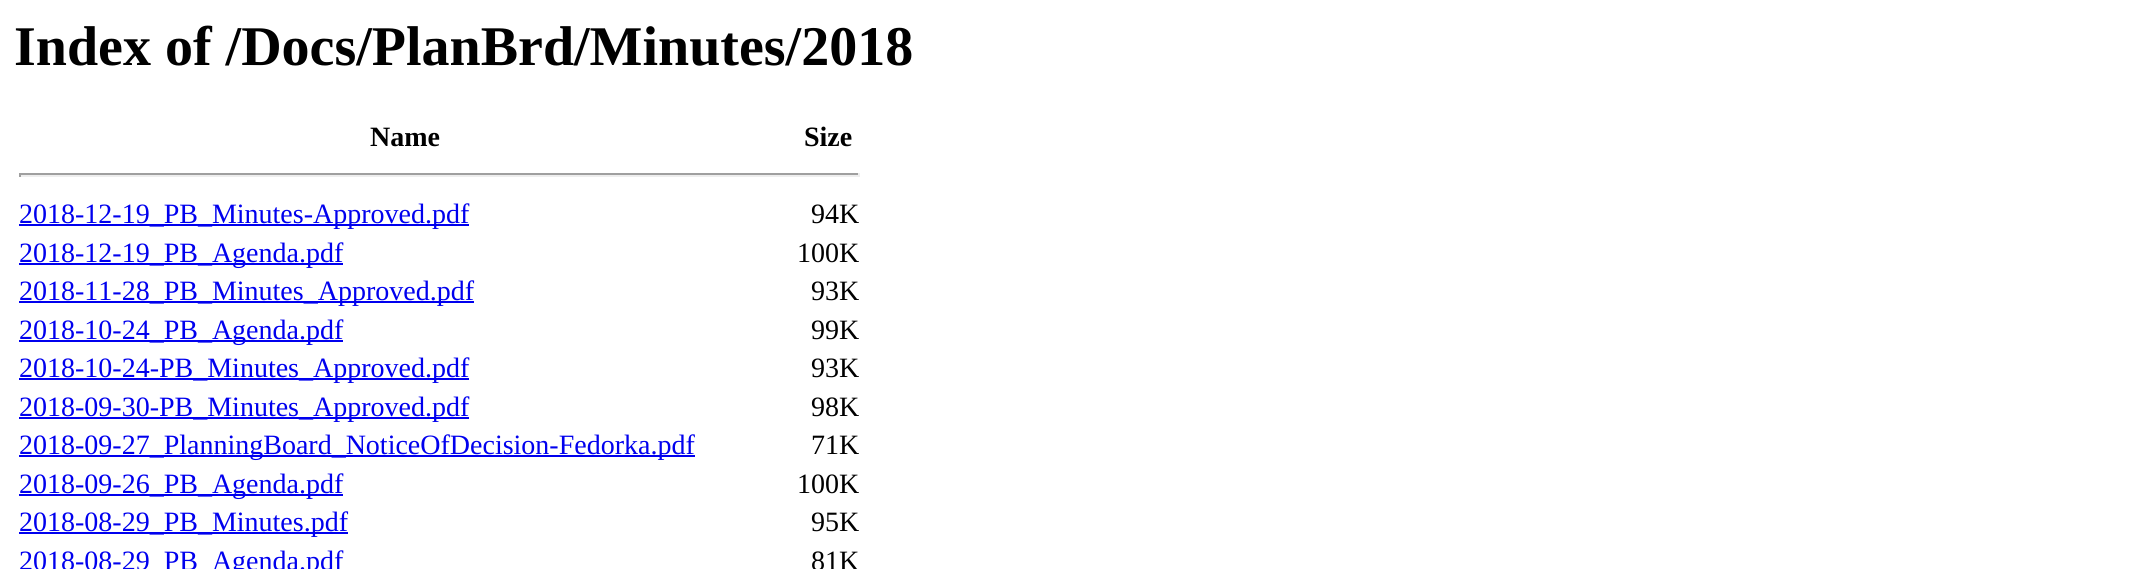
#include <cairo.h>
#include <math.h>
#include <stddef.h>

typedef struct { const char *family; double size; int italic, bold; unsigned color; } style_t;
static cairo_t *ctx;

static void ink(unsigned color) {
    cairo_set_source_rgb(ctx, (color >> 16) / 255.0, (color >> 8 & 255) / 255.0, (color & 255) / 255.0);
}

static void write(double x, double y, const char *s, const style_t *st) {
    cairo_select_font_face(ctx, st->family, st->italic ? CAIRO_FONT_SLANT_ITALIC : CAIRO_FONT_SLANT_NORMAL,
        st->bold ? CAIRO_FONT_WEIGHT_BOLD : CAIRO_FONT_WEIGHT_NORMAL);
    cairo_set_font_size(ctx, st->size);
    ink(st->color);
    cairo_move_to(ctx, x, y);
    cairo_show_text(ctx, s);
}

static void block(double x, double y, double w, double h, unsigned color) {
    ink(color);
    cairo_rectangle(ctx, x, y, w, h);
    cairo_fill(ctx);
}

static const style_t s1 = {"Liberation Serif", 56, 0, 1, 0x000000};
static const style_t s2 = {"Liberation Serif", 28, 0, 1, 0x000000};
static const style_t s3 = {"Liberation Serif", 28, 0, 0, 0x0000ee};
static const style_t s4 = {"Liberation Serif", 28, 0, 0, 0x000000};

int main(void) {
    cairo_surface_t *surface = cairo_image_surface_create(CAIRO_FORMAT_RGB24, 2150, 569);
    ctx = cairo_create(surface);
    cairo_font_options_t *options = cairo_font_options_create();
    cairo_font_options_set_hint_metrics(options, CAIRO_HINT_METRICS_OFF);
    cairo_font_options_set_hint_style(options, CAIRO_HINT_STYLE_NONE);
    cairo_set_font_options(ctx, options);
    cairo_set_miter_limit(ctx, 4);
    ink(0xffffff);
    cairo_paint(ctx);
    write(14, 65, "Index of /Docs/PlanBrd/Minutes/2018", &s1);
    write(370, 146, "Name", &s2);
    write(804, 146, "Size", &s2);
    block(19, 173, 840, 2, 0x9f9f9f);
    block(858, 173, 2, 4, 0xeeeeee);
    block(19, 175, 840, 2, 0xeeeeee);
    block(19, 173, 2, 4, 0x9f9f9f);
    block(19, 224, 450, 2, 0x0000ee);
    write(19, 223, "2018-12-19_PB_Minutes-Approved.pdf", &s3);
    write(811, 223, "94K", &s4);
    block(19, 263, 324, 2, 0x0000ee);
    write(19, 262, "2018-12-19_PB_Agenda.pdf", &s3);
    write(797, 262, "100K", &s4);
    block(19, 301, 455, 2, 0x0000ee);
    write(19, 300, "2018-11-28_PB_Minutes_Approved.pdf", &s3);
    write(811, 300, "93K", &s4);
    block(19, 340, 324, 2, 0x0000ee);
    write(19, 339, "2018-10-24_PB_Agenda.pdf", &s3);
    write(811, 339, "99K", &s4);
    block(19, 378, 450, 2, 0x0000ee);
    write(19, 377, "2018-10-24-PB_Minutes_Approved.pdf", &s3);
    write(811, 377, "93K", &s4);
    block(19, 417, 450, 2, 0x0000ee);
    write(19, 416, "2018-09-30-PB_Minutes_Approved.pdf", &s3);
    write(811, 416, "98K", &s4);
    block(19, 455, 676, 2, 0x0000ee);
    write(19, 454, "2018-09-27_PlanningBoard_NoticeOfDecision-Fedorka.pdf", &s3);
    write(811, 454, "71K", &s4);
    block(19, 494, 324, 2, 0x0000ee);
    write(19, 493, "2018-09-26_PB_Agenda.pdf", &s3);
    write(797, 493, "100K", &s4);
    block(19, 532, 329, 2, 0x0000ee);
    write(19, 531, "2018-08-29_PB_Minutes.pdf", &s3);
    write(811, 531, "95K", &s4);
    write(19, 570, "2018-08-29_PB_Agenda.pdf", &s3);
    write(811, 570, "81K", &s4);
    cairo_surface_write_to_png(surface, "screenshot.png");
    cairo_font_options_destroy(options);
    cairo_destroy(ctx);
    cairo_surface_destroy(surface);
    return 0;
}
